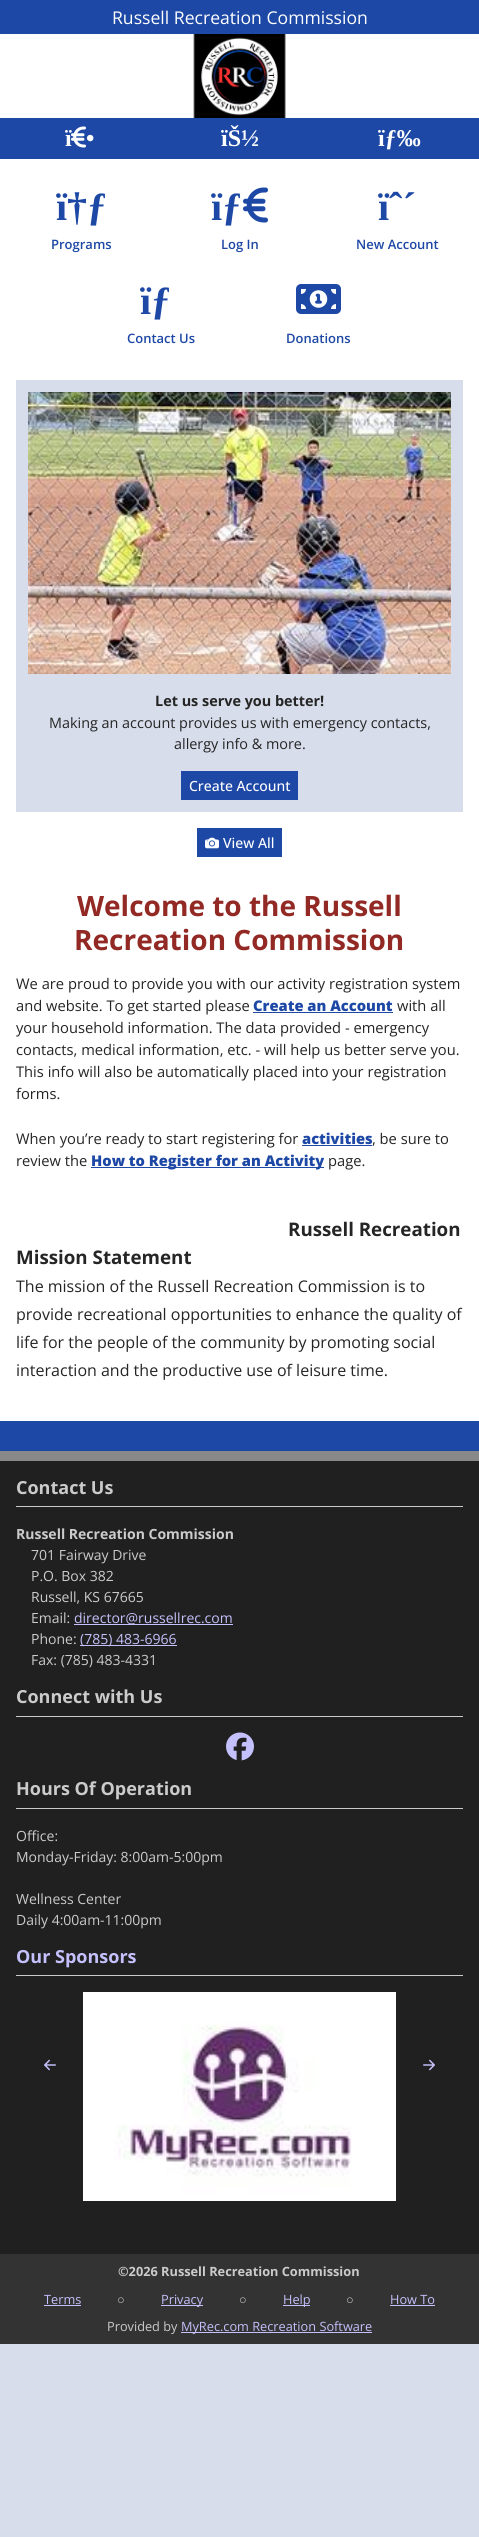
#include <cairo.h>
#include <math.h>
#include <stddef.h>

typedef struct { const char *family; double size; int italic, bold; unsigned color; } style_t;
static cairo_t *ctx;

static void ink(unsigned color) {
    cairo_set_source_rgb(ctx, (color >> 16) / 255.0, (color >> 8 & 255) / 255.0, (color & 255) / 255.0);
}

static void write(double x, double y, const char *s, const style_t *st) {
    cairo_select_font_face(ctx, st->family, st->italic ? CAIRO_FONT_SLANT_ITALIC : CAIRO_FONT_SLANT_NORMAL,
        st->bold ? CAIRO_FONT_WEIGHT_BOLD : CAIRO_FONT_WEIGHT_NORMAL);
    cairo_set_font_size(ctx, st->size);
    ink(st->color);
    cairo_move_to(ctx, x, y);
    cairo_show_text(ctx, s);
}

static void block(double x, double y, double w, double h, unsigned color) {
    ink(color);
    cairo_rectangle(ctx, x, y, w, h);
    cairo_fill(ctx);
}

static void paste(const char *path, double x, double y, double w, double h) {
    cairo_surface_t *image = cairo_image_surface_create_from_png(path);
    cairo_save(ctx);
    cairo_set_source_surface(ctx, image, x, y);
    cairo_rectangle(ctx, x, y, w, h);
    cairo_fill(ctx);
    cairo_restore(ctx);
    cairo_surface_destroy(image);
}

static const style_t s1 = {"Open Sans", 17.6, 0, 0, 0xffffff};
static const style_t s2 = {"Liberation Serif", 24, 0, 1, 0xffffff};
static const style_t s3 = {"Liberation Serif", 40, 0, 1, 0x1d48a5};
static const style_t s4 = {"Open Sans SemiBold", 13, 0, 0, 0x1d48a5};
static const style_t s5 = {"Open Sans", 14.4, 0, 1, 0x252525};
static const style_t s6 = {"Open Sans", 14.4, 0, 0, 0x252525};
static const style_t s7 = {"Open Sans Medium", 14, 0, 0, 0xffffff};
static const style_t s8 = {"Open Sans", 28, 0, 1, 0x922924};
static const style_t s9 = {"Open Sans", 14.7, 0, 0, 0x252525};
static const style_t s10 = {"Open Sans ExtraBold", 14.7, 0, 0, 0x1d48a5};
static const style_t s11 = {"Open Sans", 18.75, 0, 1, 0x252525};
static const style_t s12 = {"Open Sans", 16, 0, 0, 0x252525};
static const style_t s13 = {"Open Sans", 18, 0, 1, 0xcbcbcb};
static const style_t s14 = {"Open Sans", 14, 0, 1, 0xcbcbcb};
static const style_t s15 = {"Open Sans", 14, 0, 0, 0xcbcbcb};
static const style_t s16 = {"Open Sans", 14, 0, 0, 0xc4c0fb};
static const style_t s17 = {"Open Sans", 18, 0, 1, 0xc4c0fb};
static const style_t s18 = {"Open Sans", 12.75, 0, 1, 0xcbcbcb};
static const style_t s19 = {"Open Sans", 12.75, 0, 0, 0xc4c0fb};
static const style_t s20 = {"Liberation Serif", 12.75, 0, 0, 0xcbcbcb};
static const style_t s21 = {"Open Sans", 12.75, 0, 0, 0xcbcbcb};

int main(void) {
    cairo_surface_t *surface = cairo_image_surface_create(CAIRO_FORMAT_RGB24, 479, 2537);
    ctx = cairo_create(surface);
    cairo_font_options_t *options = cairo_font_options_create();
    cairo_font_options_set_hint_metrics(options, CAIRO_HINT_METRICS_OFF);
    cairo_font_options_set_hint_style(options, CAIRO_HINT_STYLE_NONE);
    cairo_set_font_options(ctx, options);
    cairo_set_miter_limit(ctx, 4);
    ink(0xd7ddea);
    cairo_paint(ctx);
    block(0, 34, 479, 1387, 0xffffff);
    block(0, 0, 479, 34, 0x1d48a5);
    write(112, 24, "Russell Recreation Commission", &s1);
    paste("pic1.png", 193, 34, 93, 84);
    block(0, 118, 479, 41, 0x1d48a5);
    paste("pic2.png", 71, 126, 15, 22);
    write(65, 146, "ï", &s2);
    write(86, 146, "•", &s2);
    write(221, 146, "ïŠ½", &s2);
    write(378, 146, "ïƒ‰", &s2);
    write(56, 220, "ï†ƒ", &s3);
    write(51, 249, "Programs", &s4);
    write(211, 220, "ïƒ", &s3);
    paste("pic3.png", 243, 187, 25, 36);
    write(221, 249, "Log In", &s4);
    write(378, 220, "ïˆ´", &s3);
    write(356, 249, "New Account", &s4);
    write(140, 314, "ïƒ", &s3);
    write(127, 343, "Contact Us", &s4);
    paste("pic4.png", 296, 284, 45, 30);
    write(286, 343, "Donations", &s4);
    block(16, 380, 447, 432, 0xd7ddea);
    paste("pic5.png", 28, 392, 423, 282);
    write(155, 706, "Let us serve you better!", &s5);
    write(49, 728, "Making an account provides us with emergency contacts,", &s6);
    write(174, 749, "allergy info & more.", &s6);
    block(181, 771, 117, 29, 0x1d48a5);
    write(189, 791, "Create Account", &s7);
    block(197, 828, 85, 29, 0x1d48a5);
    paste("pic6.png", 205, 837, 14, 12);
    write(223, 848, "View All", &s7);
    write(77, 916, "Welcome to the Russell", &s8);
    write(74, 950, "Recreation Commission", &s8);
    write(16, 989, "We are proud to provide you with our activity registration system", &s9);
    write(16, 1011, "and website. To get started please", &s9);
    write(253, 1011, "Create an Account", &s10);
    block(253, 1012, 140, 1, 0x1d48a5);
    write(397, 1011, "with all", &s9);
    write(16, 1033, "your household information. The data provided - emergency", &s9);
    write(16, 1055, "contacts, medical information, etc. - will help us better serve you.", &s9);
    write(16, 1077, "This info will also be automatically placed into your registration", &s9);
    write(16, 1099, "forms.", &s9);
    write(16, 1144, "When you’re ready to start registering for", &s9);
    write(302, 1144, "activities", &s10);
    block(302, 1145, 70, 1, 0x1d48a5);
    write(372, 1144, ", be sure to", &s9);
    write(16, 1166, "review the", &s9);
    block(91, 1167, 233, 1, 0x1d48a5);
    write(91, 1166, "How to Register for an Activity", &s10);
    write(328, 1166, "page.", &s9);
    write(288, 1236, "Russell Recreation", &s11);
    write(16, 1264, "Mission Statement", &s11);
    write(16, 1292, "The mission of the Russell Recreation Commission is to", &s12);
    write(16, 1320, "provide recreational opportunities to enhance the quality of", &s12);
    write(16, 1348, "life for the people of the community by promoting social", &s12);
    write(16, 1376, "interaction and the productive use of leisure time.", &s12);
    block(0, 1421, 479, 30, 0x1d48a5);
    block(0, 1461, 479, 793, 0x202020);
    block(0, 1451, 479, 10, 0x898989);
    block(16, 1506, 447, 1, 0xcbcbcb);
    write(16, 1494, "Contact Us", &s13);
    write(16, 1539, "Russell Recreation Commission", &s14);
    write(31, 1560, "701 Fairway Drive", &s15);
    write(31, 1581, "P.O. Box 382", &s15);
    write(31, 1602, "Russell, KS 67665", &s15);
    write(31, 1623, "Email:", &s15);
    block(74, 1624, 159, 1, 0xc4c0fb);
    write(74, 1623, "director@russellrec.com", &s16);
    write(31, 1644, "Phone:", &s15);
    block(80, 1645, 97, 1, 0xc4c0fb);
    write(80, 1644, "(785) 483-6966", &s16);
    write(31, 1665, "Fax: (785) 483-4331", &s15);
    block(16, 1716, 447, 1, 0xcbcbcb);
    write(16, 1703, "Connect with Us", &s13);
    paste("pic7.png", 226, 1732, 28, 29);
    block(16, 1808, 447, 1, 0xcbcbcb);
    write(16, 1795, "Hours Of Operation", &s13);
    write(16, 1841, "Office:", &s15);
    write(16, 1862, "Monday-Friday: 8:00am-5:00pm", &s15);
    write(16, 1904, "Wellness Center", &s15);
    write(16, 1925, "Daily 4:00am-11:00pm", &s15);
    block(16, 1975, 447, 1, 0xcbcbcb);
    write(16, 1963, "Our Sponsors", &s17);
    paste("pic8.png", 44, 2059, 12, 12);
    paste("pic9.png", 83, 1992, 313, 209);
    paste("pic10.png", 423, 2059, 12, 12);
    block(0, 2254, 479, 90, 0x333333);
    write(118, 2276, "©2026 Russell Recreation Commission", &s18);
    write(44, 2304, "Terms", &s19);
    block(44, 2305, 37, 1, 0xc4c0fb);
    write(117, 2304, "○", &s20);
    block(161, 2305, 42, 1, 0xc4c0fb);
    write(161, 2304, "Privacy", &s19);
    write(239, 2304, "○", &s20);
    block(283, 2305, 27, 1, 0xc4c0fb);
    write(283, 2304, "Help", &s19);
    write(346, 2304, "○", &s20);
    write(390, 2304, "How To", &s19);
    block(390, 2305, 45, 1, 0xc4c0fb);
    write(107, 2331, "Provided by", &s21);
    block(181, 2332, 191, 1, 0xc4c0fb);
    write(181, 2331, "MyRec.com Recreation Software", &s19);
    cairo_surface_write_to_png(surface, "screenshot.png");
    cairo_font_options_destroy(options);
    cairo_destroy(ctx);
    cairo_surface_destroy(surface);
    return 0;
}
